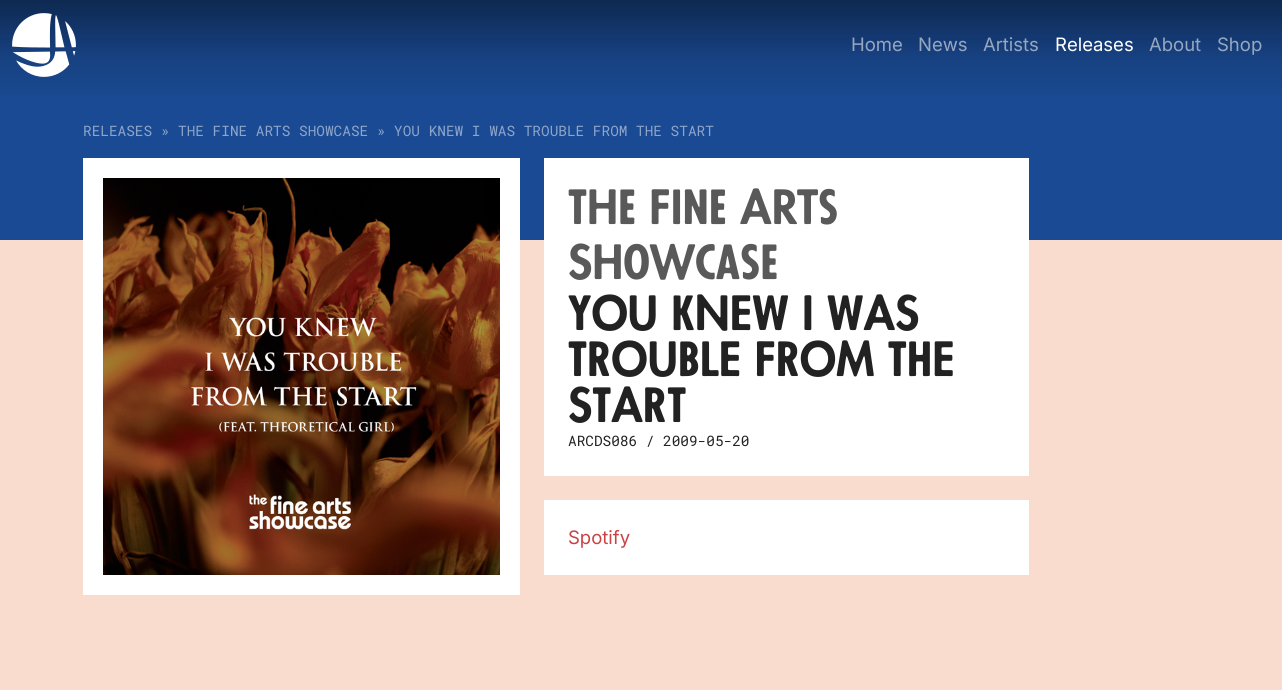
#include <cairo.h>
#include <math.h>
#include <stddef.h>

typedef struct { const char *family; double size; int italic, bold; unsigned color; } style_t;
static cairo_t *ctx;

static void ink(unsigned color) {
    cairo_set_source_rgb(ctx, (color >> 16) / 255.0, (color >> 8 & 255) / 255.0, (color & 255) / 255.0);
}

static void write(double x, double y, const char *s, const style_t *st) {
    cairo_select_font_face(ctx, st->family, st->italic ? CAIRO_FONT_SLANT_ITALIC : CAIRO_FONT_SLANT_NORMAL,
        st->bold ? CAIRO_FONT_WEIGHT_BOLD : CAIRO_FONT_WEIGHT_NORMAL);
    cairo_set_font_size(ctx, st->size);
    ink(st->color);
    cairo_move_to(ctx, x, y);
    cairo_show_text(ctx, s);
}

static void block(double x, double y, double w, double h, unsigned color) {
    ink(color);
    cairo_rectangle(ctx, x, y, w, h);
    cairo_fill(ctx);
}

static void paste(const char *path, double x, double y, double w, double h) {
    cairo_surface_t *image = cairo_image_surface_create_from_png(path);
    cairo_save(ctx);
    cairo_set_source_surface(ctx, image, x, y);
    cairo_rectangle(ctx, x, y, w, h);
    cairo_fill(ctx);
    cairo_restore(ctx);
    cairo_surface_destroy(image);
}

static const style_t s1 = {"Inter", 18.5, 0, 0, 0x96a7c2};
static const style_t s2 = {"Inter", 18.5, 0, 0, 0xffffff};
static const style_t s3 = {"Roboto Mono", 14.4, 0, 0, 0x8da5c9};
static const style_t s4 = {"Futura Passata", 46, 0, 1, 0x595959};
static const style_t s5 = {"Futura Passata", 46, 0, 1, 0x222222};
static const style_t s6 = {"Roboto Mono", 14.4, 0, 0, 0x222222};
static const style_t s7 = {"Inter", 18.5, 0, 0, 0xc94345};

int main(void) {
    cairo_surface_t *surface = cairo_image_surface_create(CAIRO_FORMAT_RGB24, 1282, 690);
    ctx = cairo_create(surface);
    cairo_font_options_t *options = cairo_font_options_create();
    cairo_font_options_set_hint_metrics(options, CAIRO_HINT_METRICS_OFF);
    cairo_font_options_set_hint_style(options, CAIRO_HINT_STYLE_NONE);
    cairo_set_font_options(ctx, options);
    cairo_set_miter_limit(ctx, 4);
    cairo_pattern_t *gradient;
    ink(0xf9dcce);
    cairo_paint(ctx);
    block(0, 0, 1282, 240, 0x1a4a93);
    gradient = cairo_pattern_create_linear(641, -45, 641, 135);
    cairo_pattern_add_color_stop_rgba(gradient, 0.2, 0, 0, 0, 0.5);
    cairo_pattern_add_color_stop_rgba(gradient, 0.57, 0, 0, 0, 0.12);
    cairo_pattern_add_color_stop_rgba(gradient, 0.82, 0, 0, 0, 0);
    cairo_set_source(ctx, gradient);
    cairo_pattern_destroy(gradient);
    cairo_rectangle(ctx, 0, 0, 1282, 95);
    cairo_fill(ctx);
    paste("pic1.png", 12, 13, 64, 64);
    write(851, 51, "Home", &s1);
    write(918, 51, "News", &s1);
    write(983, 51, "Artists", &s1);
    write(1055, 51, "Releases", &s2);
    write(1149, 51, "About", &s1);
    write(1217, 51, "Shop", &s1);
    write(83, 136, "RELEASES » THE FINE ARTS SHOWCASE » YOU KNEW I WAS TROUBLE FROM THE START", &s3);
    cairo_rectangle(ctx, 93, 168, 417, 417);
    ink(0xffffff);
    cairo_set_line_width(ctx, 20);
    cairo_stroke(ctx);
    paste("pic2.png", 103, 178, 397, 397);
    block(544, 158, 485, 318, 0xffffff);
    write(568, 224, "The Fine Arts", &s4);
    write(568, 279, "Showcase", &s4);
    write(568, 330, "YOU KNEW I WAS", &s5);
    write(568, 376, "TROUBLE FROM THE", &s5);
    write(568, 422, "START", &s5);
    write(568, 446, "ARCDS086 / 2009-05-20", &s6);
    block(544, 500, 485, 75, 0xffffff);
    write(568, 544, "Spotify", &s7);
    cairo_surface_write_to_png(surface, "screenshot.png");
    cairo_font_options_destroy(options);
    cairo_destroy(ctx);
    cairo_surface_destroy(surface);
    return 0;
}
